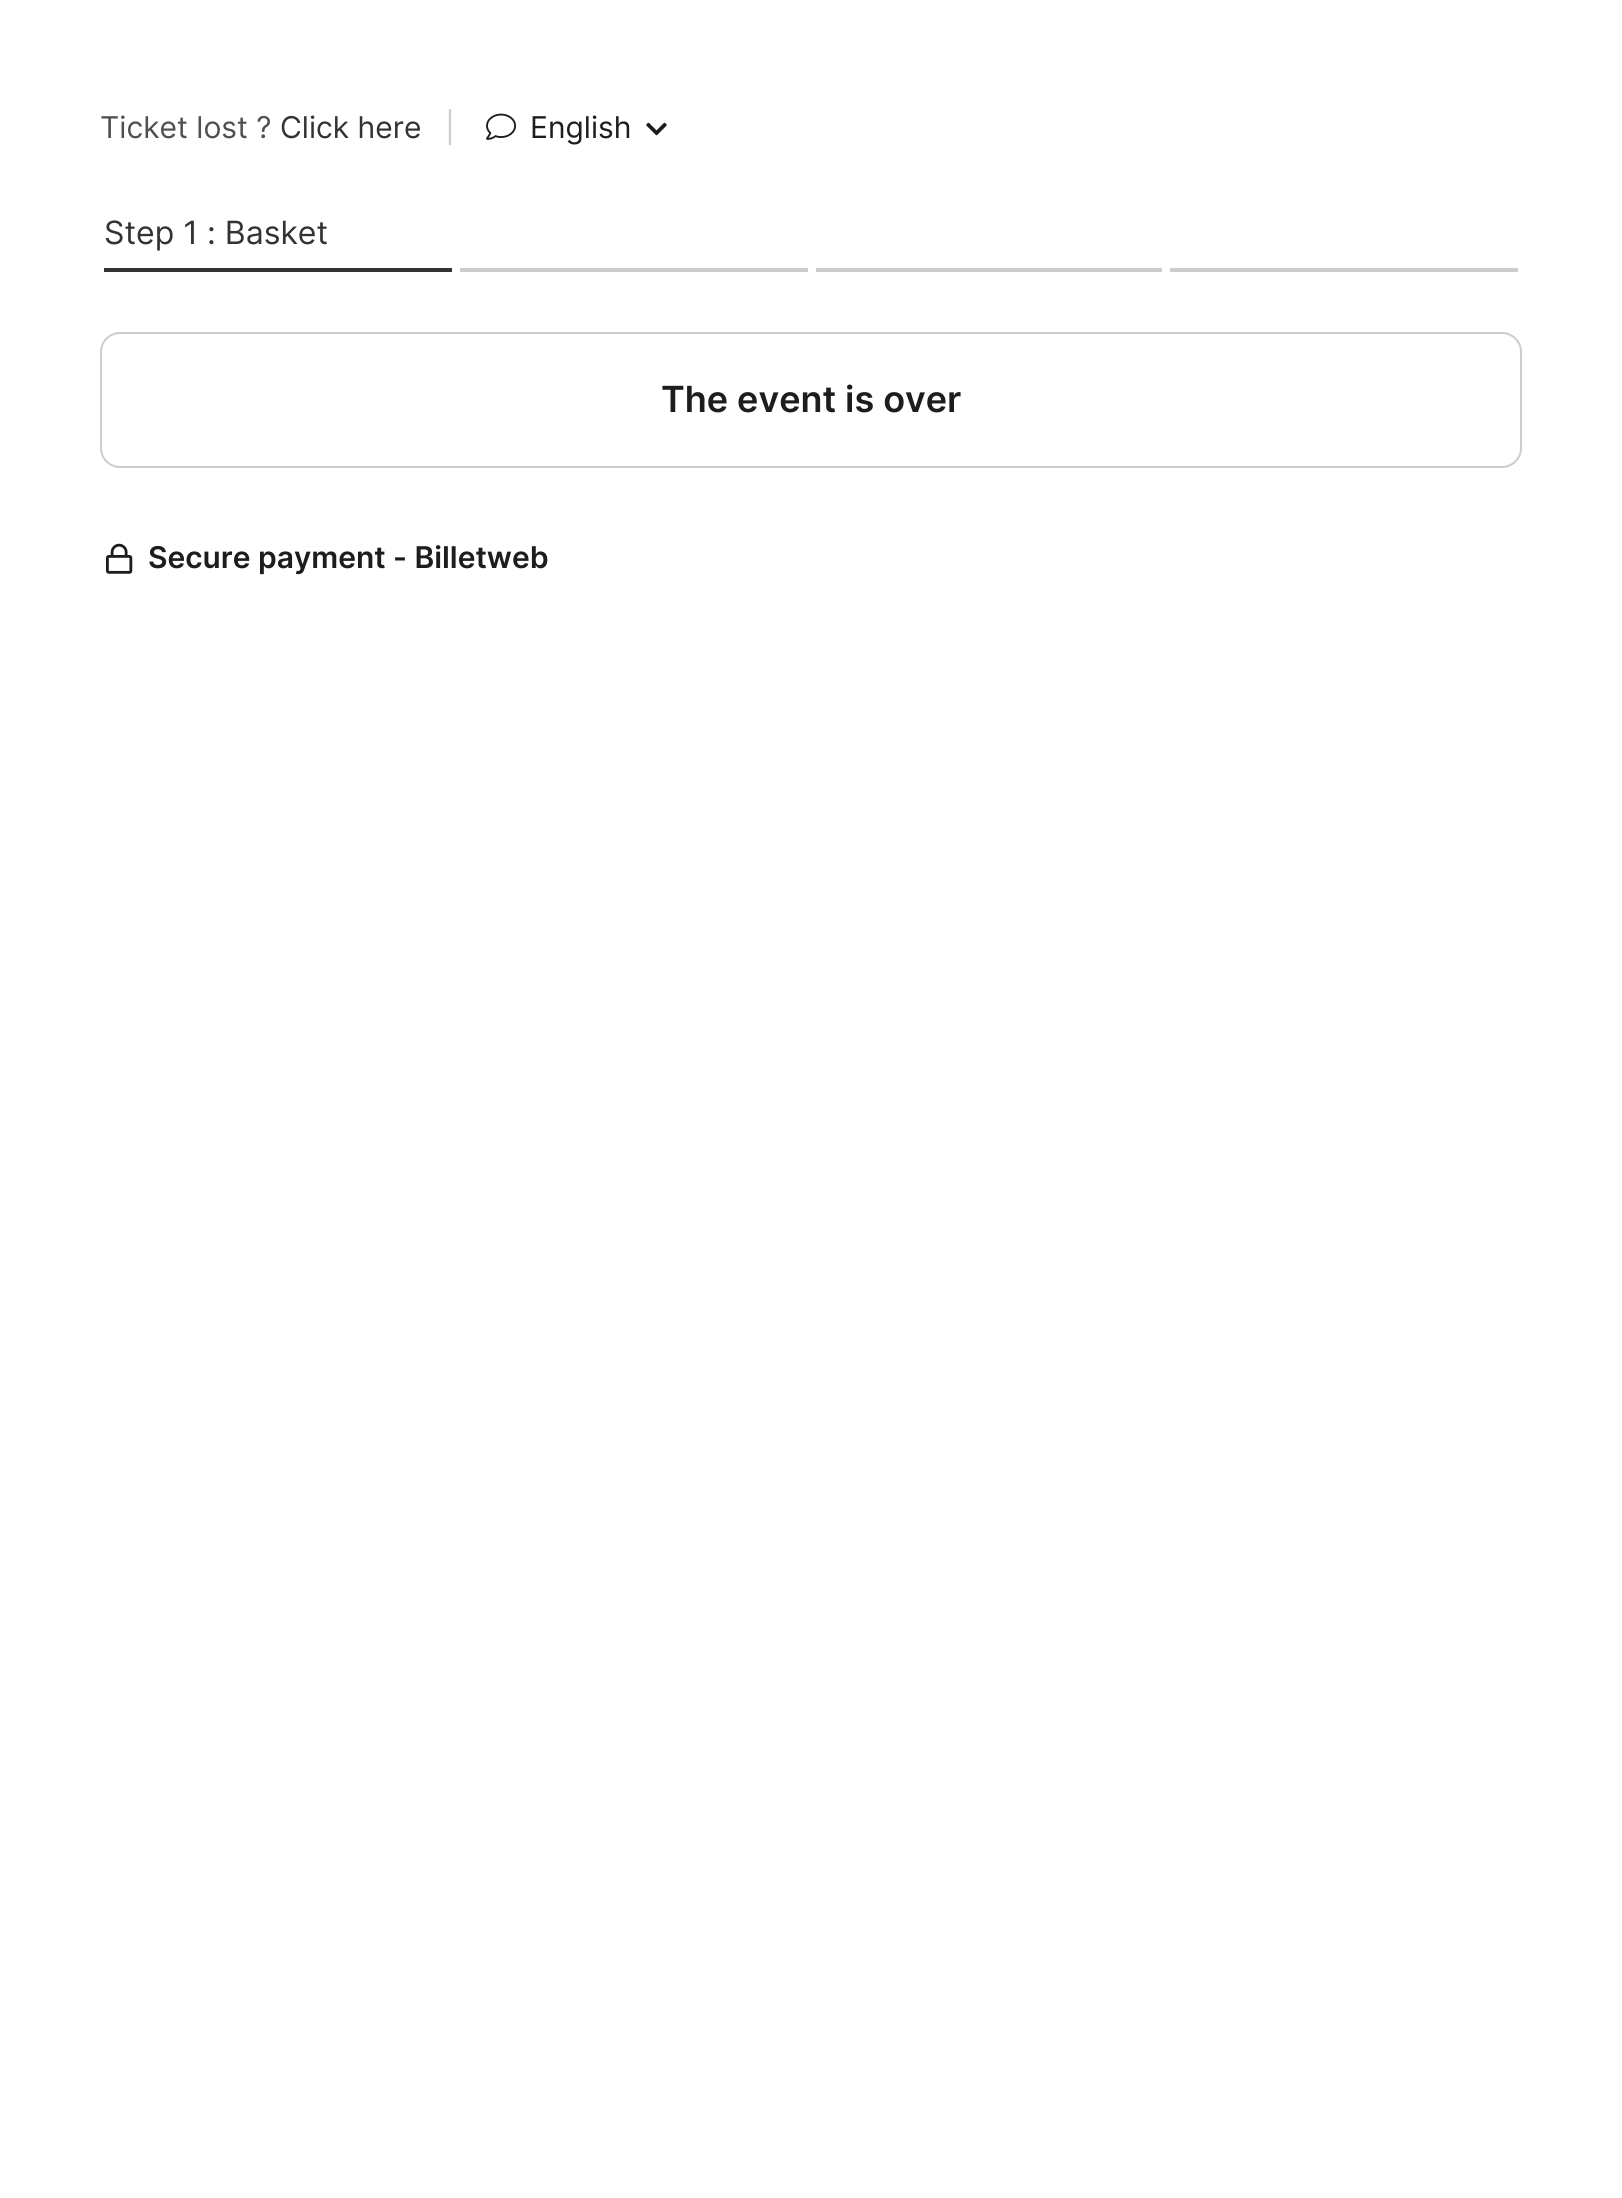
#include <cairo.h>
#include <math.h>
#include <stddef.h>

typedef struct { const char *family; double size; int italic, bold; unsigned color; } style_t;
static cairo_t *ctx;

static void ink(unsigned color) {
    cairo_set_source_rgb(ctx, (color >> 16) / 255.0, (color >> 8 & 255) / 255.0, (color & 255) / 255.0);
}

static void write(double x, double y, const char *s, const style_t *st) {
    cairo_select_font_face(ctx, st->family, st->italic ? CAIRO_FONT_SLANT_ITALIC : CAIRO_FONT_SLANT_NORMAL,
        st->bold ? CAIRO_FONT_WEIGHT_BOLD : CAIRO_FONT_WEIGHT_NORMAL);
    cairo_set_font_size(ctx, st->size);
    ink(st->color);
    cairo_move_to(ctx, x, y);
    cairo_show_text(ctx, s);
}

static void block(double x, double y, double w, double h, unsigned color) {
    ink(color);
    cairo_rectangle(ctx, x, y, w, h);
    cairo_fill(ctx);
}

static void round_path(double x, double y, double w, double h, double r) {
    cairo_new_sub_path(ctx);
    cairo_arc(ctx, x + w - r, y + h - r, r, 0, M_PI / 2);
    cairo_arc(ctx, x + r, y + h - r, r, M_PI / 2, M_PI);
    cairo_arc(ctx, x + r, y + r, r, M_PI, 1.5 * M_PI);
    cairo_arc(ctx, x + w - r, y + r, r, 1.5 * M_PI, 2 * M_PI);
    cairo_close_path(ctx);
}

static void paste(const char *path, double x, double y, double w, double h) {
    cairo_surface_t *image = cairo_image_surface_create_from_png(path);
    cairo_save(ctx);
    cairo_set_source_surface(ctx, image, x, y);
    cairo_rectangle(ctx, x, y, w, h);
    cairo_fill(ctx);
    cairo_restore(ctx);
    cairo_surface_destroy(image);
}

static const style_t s1 = {"Inter", 30, 0, 0, 0x505050};
static const style_t s2 = {"Inter", 30, 0, 0, 0x333333};
static const style_t s3 = {"Inter", 30, 0, 0, 0xcccccc};
static const style_t s4 = {"Inter", 30, 0, 0, 0x1d1d1b};
static const style_t s5 = {"Inter", 32, 0, 0, 0x333333};
static const style_t s6 = {"Inter SemiBold", 36, 0, 0, 0x1d1d1b};
static const style_t s7 = {"Inter SemiBold", 30, 0, 0, 0x1d1d1b};

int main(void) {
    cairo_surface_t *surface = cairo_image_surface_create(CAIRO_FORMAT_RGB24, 1622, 2198);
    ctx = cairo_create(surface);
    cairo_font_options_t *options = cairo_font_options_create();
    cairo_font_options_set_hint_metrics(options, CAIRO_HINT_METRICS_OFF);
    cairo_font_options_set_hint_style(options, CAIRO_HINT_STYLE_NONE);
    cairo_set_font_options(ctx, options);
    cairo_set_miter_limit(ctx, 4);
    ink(0xffffff);
    cairo_paint(ctx);
    write(100, 138, "Ticket lost ?", &s1);
    write(280, 138, "Click here", &s2);
    write(445, 138, "|", &s3);
    paste("pic1.png", 486, 113, 31, 27);
    write(530, 138, "English", &s4);
    paste("pic2.png", 646, 122, 21, 14);
    write(104, 244, "Step 1 : Basket", &s5);
    block(104, 268, 348, 4, 0x333333);
    block(460, 268, 348, 4, 0xcccccc);
    block(816, 268, 346, 4, 0xcccccc);
    block(1170, 268, 348, 4, 0xcccccc);
    round_path(101, 333, 1420, 134, 19);
    cairo_stroke(ctx);
    write(661, 412, "The event is over", &s6);
    paste("pic3.png", 106, 543, 27, 31);
    write(148, 568, "Secure payment - Billetweb", &s7);
    cairo_surface_write_to_png(surface, "screenshot.png");
    cairo_font_options_destroy(options);
    cairo_destroy(ctx);
    cairo_surface_destroy(surface);
    return 0;
}
